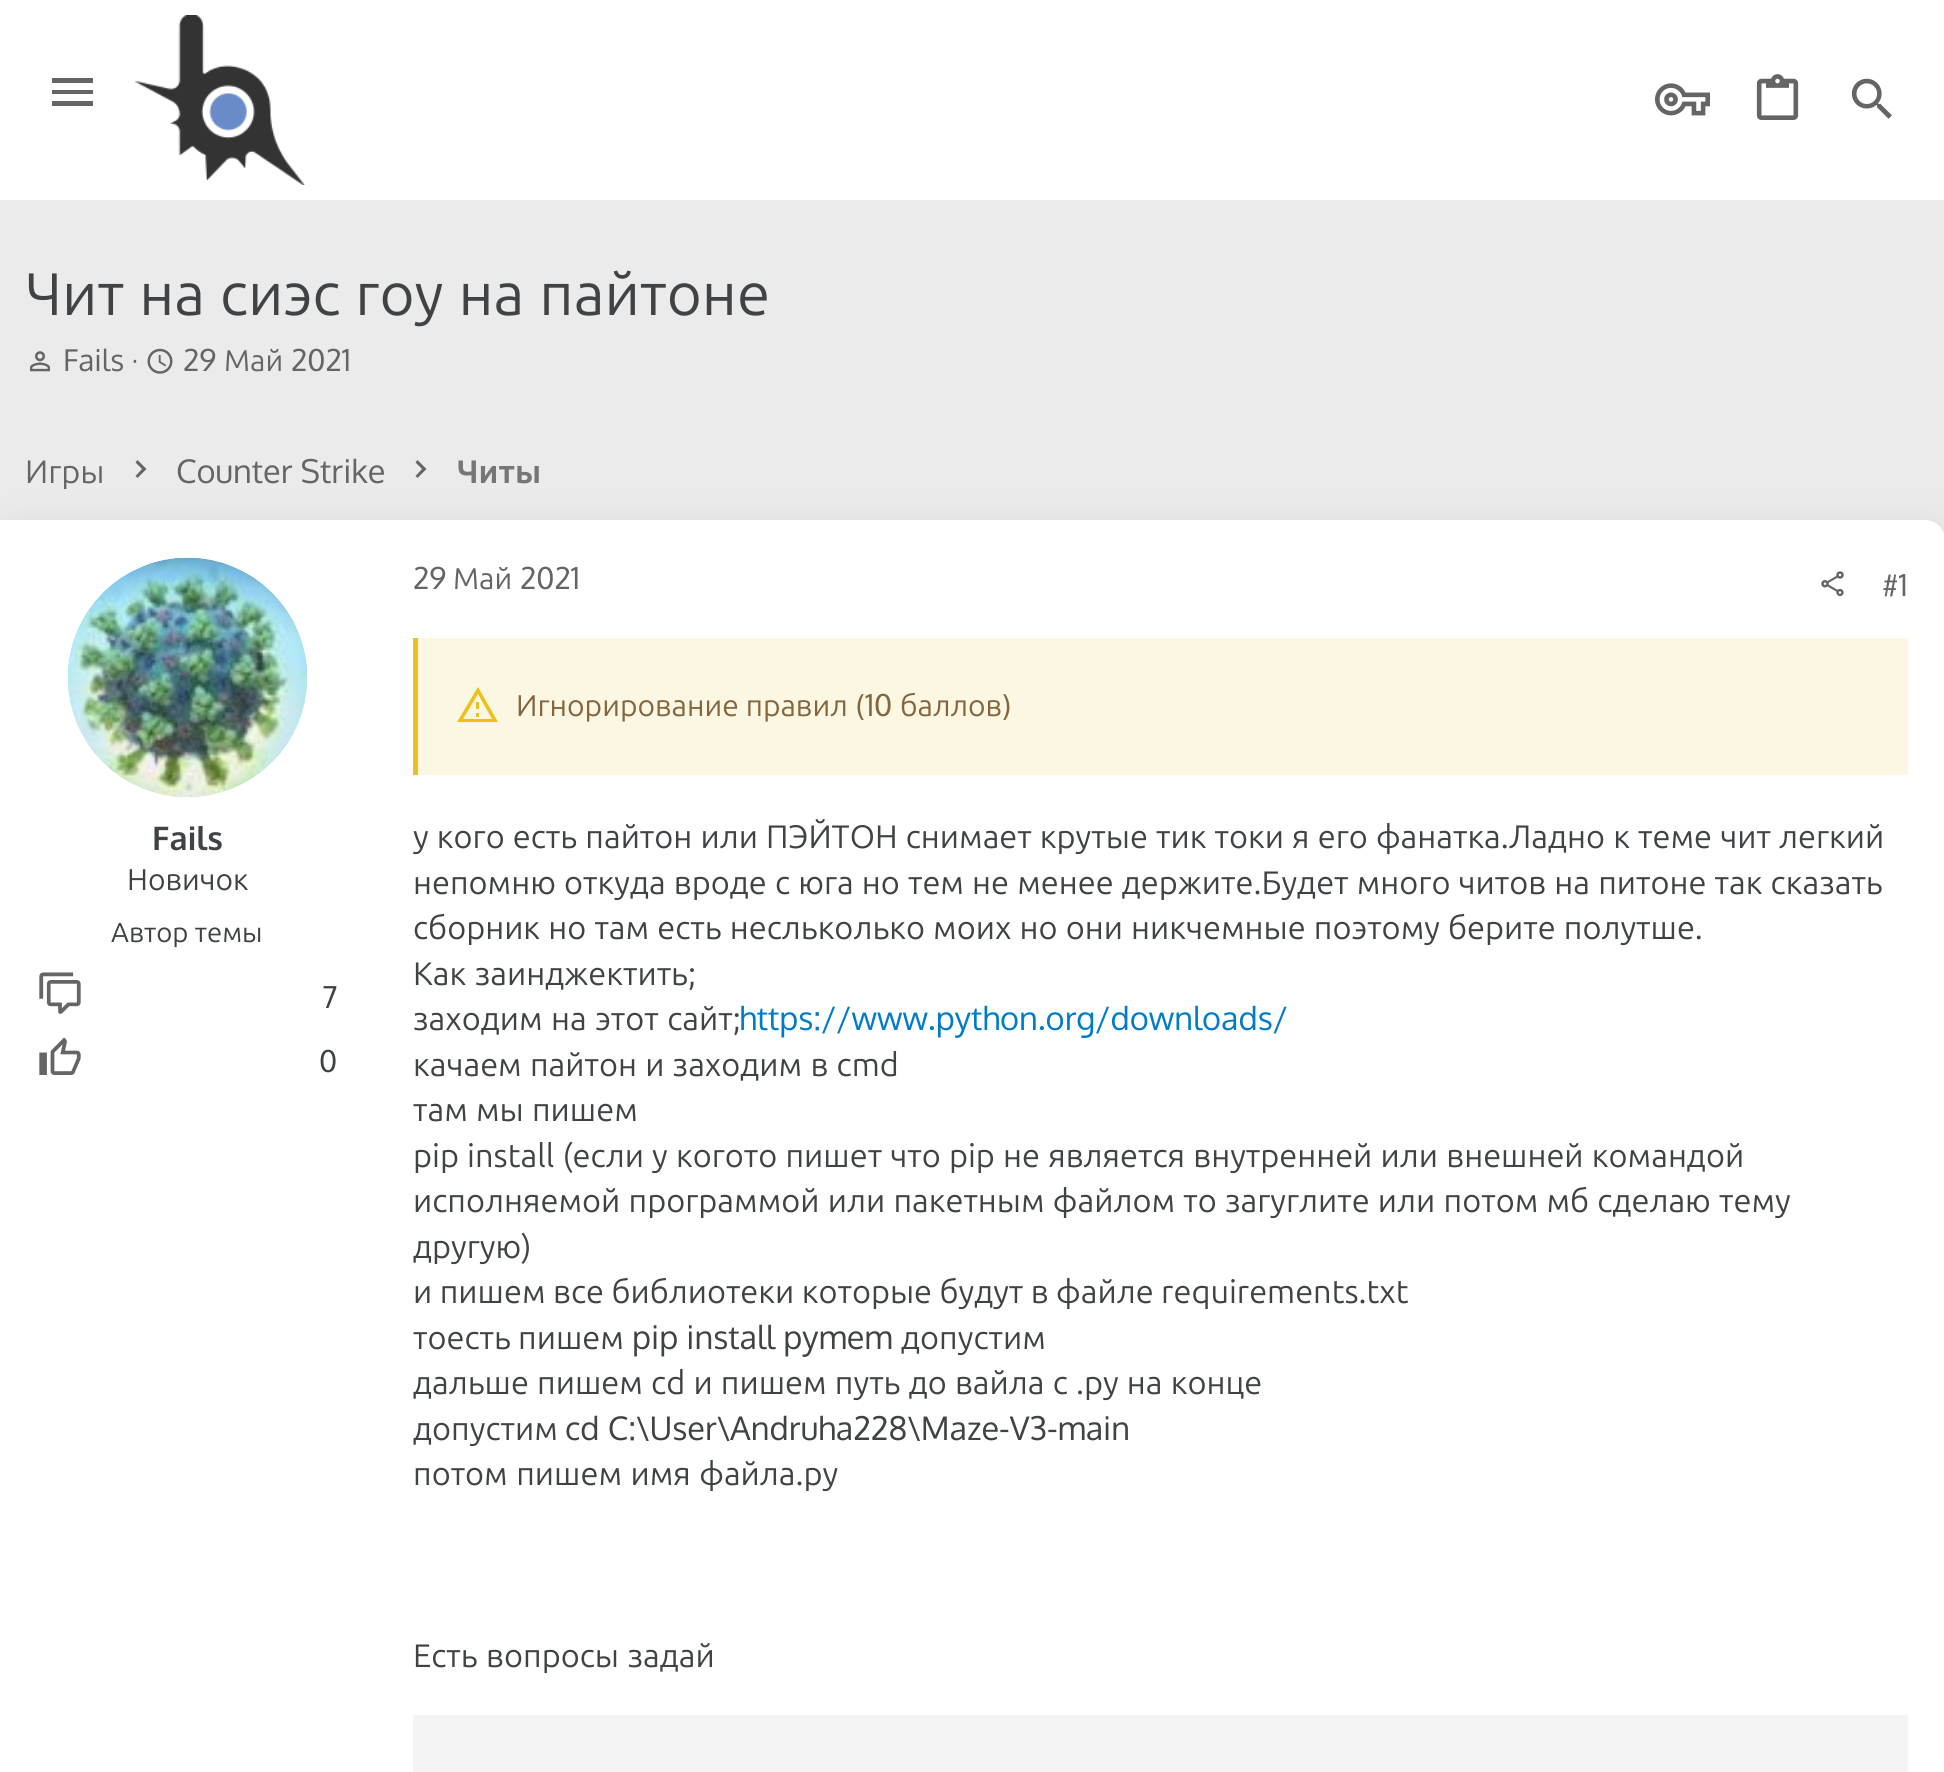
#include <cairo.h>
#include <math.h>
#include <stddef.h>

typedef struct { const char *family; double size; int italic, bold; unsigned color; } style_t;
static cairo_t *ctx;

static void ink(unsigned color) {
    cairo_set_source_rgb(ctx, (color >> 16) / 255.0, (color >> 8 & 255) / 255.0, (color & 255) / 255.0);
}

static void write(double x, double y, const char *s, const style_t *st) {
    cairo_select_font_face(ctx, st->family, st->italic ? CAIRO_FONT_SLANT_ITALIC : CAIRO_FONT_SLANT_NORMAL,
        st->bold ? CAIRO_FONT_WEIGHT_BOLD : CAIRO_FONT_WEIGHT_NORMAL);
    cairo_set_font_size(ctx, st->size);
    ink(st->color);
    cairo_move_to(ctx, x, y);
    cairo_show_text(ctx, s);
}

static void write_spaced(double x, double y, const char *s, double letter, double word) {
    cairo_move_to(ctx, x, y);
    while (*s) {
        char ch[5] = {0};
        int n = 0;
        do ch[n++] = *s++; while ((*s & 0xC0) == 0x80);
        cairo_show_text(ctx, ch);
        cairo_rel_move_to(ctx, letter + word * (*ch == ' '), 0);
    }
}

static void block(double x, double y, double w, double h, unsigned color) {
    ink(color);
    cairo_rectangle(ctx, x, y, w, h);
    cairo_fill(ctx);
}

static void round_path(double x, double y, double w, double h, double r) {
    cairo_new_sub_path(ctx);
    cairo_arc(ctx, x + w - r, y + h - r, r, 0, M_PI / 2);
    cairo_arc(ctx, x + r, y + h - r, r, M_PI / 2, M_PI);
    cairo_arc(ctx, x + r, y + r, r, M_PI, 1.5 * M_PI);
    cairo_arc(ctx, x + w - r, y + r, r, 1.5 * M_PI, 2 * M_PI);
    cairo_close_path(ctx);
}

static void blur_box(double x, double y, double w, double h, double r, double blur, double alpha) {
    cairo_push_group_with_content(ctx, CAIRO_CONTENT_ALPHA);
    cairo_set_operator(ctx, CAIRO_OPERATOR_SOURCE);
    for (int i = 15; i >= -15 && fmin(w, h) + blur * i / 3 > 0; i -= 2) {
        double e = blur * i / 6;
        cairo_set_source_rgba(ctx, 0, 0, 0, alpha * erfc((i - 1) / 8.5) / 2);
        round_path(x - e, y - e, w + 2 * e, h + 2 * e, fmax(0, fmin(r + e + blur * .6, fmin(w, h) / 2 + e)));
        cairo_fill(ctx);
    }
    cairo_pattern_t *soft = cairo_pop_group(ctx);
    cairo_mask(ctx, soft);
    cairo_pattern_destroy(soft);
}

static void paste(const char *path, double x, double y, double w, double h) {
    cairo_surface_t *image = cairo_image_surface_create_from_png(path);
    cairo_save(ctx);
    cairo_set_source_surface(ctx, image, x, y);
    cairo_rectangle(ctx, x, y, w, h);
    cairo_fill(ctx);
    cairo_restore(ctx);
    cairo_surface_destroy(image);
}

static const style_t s1 = {"Oxygen", 30, 0, 0, 0x656565};
static const style_t s2 = {"Ubuntu", 30, 0, 0, 0x656565};
static const style_t s3 = {"Ubuntu", 32.5, 0, 0, 0x656565};
static const style_t s4 = {"Oxygen", 32.5, 0, 0, 0x656565};
static const style_t s5 = {"Ubuntu", 32.5, 0, 1, 0x767676};
static const style_t s6 = {"Oxygen", 32.5, 0, 1, 0x404345};
static const style_t s7 = {"Ubuntu", 30, 0, 0, 0x404345};
static const style_t s8 = {"Ubuntu", 27.5, 0, 0, 0x404345};
static const style_t s9 = {"Oxygen", 30, 0, 0, 0x404345};
static const style_t s10 = {"Ubuntu", 30, 0, 0, 0x84653d};
static const style_t s11 = {"Oxygen", 30, 0, 0, 0x84653d};
static const style_t s12 = {"Oxygen", 32.5, 0, 0, 0x007bca};
static const style_t s13 = {"Ubuntu", 32.5, 0, 0, 0x404345};
static const style_t s14 = {"Oxygen", 32.5, 0, 0, 0x404345};

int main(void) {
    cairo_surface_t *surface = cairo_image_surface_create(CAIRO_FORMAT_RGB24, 1944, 1772);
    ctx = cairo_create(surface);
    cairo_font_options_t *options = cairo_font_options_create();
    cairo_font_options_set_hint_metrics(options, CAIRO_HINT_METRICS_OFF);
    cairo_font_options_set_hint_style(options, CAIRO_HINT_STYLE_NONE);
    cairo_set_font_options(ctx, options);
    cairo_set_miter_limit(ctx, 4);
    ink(0xebebeb);
    cairo_paint(ctx);
    block(0, 0, 1944, 200, 0xffffff);
    ink(0x656565);
    cairo_new_path(ctx);
    cairo_move_to(ctx, 52, 78);
    cairo_line_to(ctx, 93, 78);
    cairo_line_to(ctx, 93, 83);
    cairo_line_to(ctx, 52, 83);
    cairo_close_path(ctx);
    cairo_move_to(ctx, 52, 90);
    cairo_line_to(ctx, 93, 90);
    cairo_line_to(ctx, 93, 94);
    cairo_line_to(ctx, 52, 94);
    cairo_close_path(ctx);
    cairo_move_to(ctx, 52, 101);
    cairo_line_to(ctx, 93, 101);
    cairo_line_to(ctx, 93, 106);
    cairo_line_to(ctx, 52, 106);
    cairo_close_path(ctx);
    cairo_fill(ctx);
    paste("pic1.png", 135, 15, 170, 170);
    paste("pic2.png", 1655, 83, 55, 33);
    paste("pic3.png", 1756, 74, 43, 46);
    paste("pic4.png", 1851, 78, 41, 41);
    cairo_select_font_face(ctx, "Ubuntu", CAIRO_FONT_SLANT_NORMAL, CAIRO_FONT_WEIGHT_NORMAL);
    cairo_set_font_size(ctx, 60);
    ink(0x404345);
    write_spaced(25, 315, "Чит на сиэс гоу на пайтоне", 0, 1.25);
    paste("pic5.png", 30, 351, 20, 21);
    write(63, 371, "Fails ·", &s1);
    paste("pic6.png", 147, 348, 26, 26);
    write(183, 371, "29", &s1);
    write(224, 371, "Май", &s2);
    write(291, 371, "2021", &s1);
    cairo_new_path(ctx);
    cairo_move_to(ctx, 135.5, 476);
    cairo_line_to(ctx, 142, 469);
    cairo_line_to(ctx, 135.5, 462.5);
    cairo_line_to(ctx, 137.5, 460);
    cairo_line_to(ctx, 146.5, 469);
    cairo_line_to(ctx, 137.5, 478);
    cairo_close_path(ctx);
    cairo_fill(ctx);
    cairo_new_path(ctx);
    cairo_move_to(ctx, 415.5, 476);
    cairo_line_to(ctx, 422, 469);
    cairo_line_to(ctx, 415.5, 462.5);
    cairo_line_to(ctx, 417.5, 460);
    cairo_line_to(ctx, 426.5, 469);
    cairo_line_to(ctx, 417.5, 478);
    cairo_close_path(ctx);
    cairo_fill(ctx);
    ink(0x6e6e6e);
    blur_box(0, 530, 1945, 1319, 20, 19, 0.2);
    write(25, 483, "Игры", &s3);
    write(176, 483, "Counter Strike", &s4);
    write(457, 483, "Читы", &s5);
    ink(0xffffff);
    cairo_new_path(ctx);
    cairo_move_to(ctx, 20, 520);
    cairo_line_to(ctx, 1925, 520);
    cairo_curve_to(ctx, 1936, 520, 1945, 529, 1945, 540);
    cairo_line_to(ctx, 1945, 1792);
    cairo_line_to(ctx, 0, 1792);
    cairo_line_to(ctx, 0, 540);
    cairo_curve_to(ctx, 0, 529, 9, 520, 20, 520);
    cairo_close_path(ctx);
    cairo_fill(ctx);
    block(0, 520, 18, 18, 0xffffff);
    paste("pic7.png", 67, 557, 241, 240);
    write(152, 850, "Fails", &s6);
    write(127, 890, "Новичок", &s7);
    write(111, 942, "Автор темы", &s8);
    paste("pic8.png", 39, 972, 42, 42);
    write(322, 1008, "7", &s9);
    paste("pic9.png", 39, 1037, 42, 38);
    write(319, 1072, "0", &s9);
    write(413, 589, "29", &s1);
    write(453, 589, "Май", &s2);
    write(520, 589, "2021", &s1);
    paste("pic10.png", 1821, 571, 23, 26);
    write(1882, 596, "#1", &s1);
    block(418, 638, 1490, 137, 0xfbf7e2);
    block(413, 638, 5, 137, 0xedc01b);
    cairo_new_path(ctx);
    cairo_move_to(ctx, 478, 687);
    cairo_line_to(ctx, 457, 722);
    cairo_line_to(ctx, 498, 722);
    cairo_close_path(ctx);
    cairo_move_to(ctx, 478, 694);
    cairo_line_to(ctx, 492, 719);
    cairo_line_to(ctx, 463, 719);
    cairo_close_path(ctx);
    cairo_move_to(ctx, 476, 702);
    cairo_line_to(ctx, 476, 709);
    cairo_line_to(ctx, 479, 709);
    cairo_line_to(ctx, 479, 702);
    cairo_close_path(ctx);
    cairo_move_to(ctx, 476, 713);
    cairo_line_to(ctx, 476, 717);
    cairo_line_to(ctx, 479, 717);
    cairo_line_to(ctx, 479, 713);
    cairo_close_path(ctx);
    cairo_fill(ctx);
    write(516, 716, "Игнорирование правил", &s10);
    write(856, 716, "(10", &s11);
    write(900, 716, "баллов", &s10);
    write(1002, 716, ")", &s11);
    cairo_select_font_face(ctx, "Ubuntu", CAIRO_FONT_SLANT_NORMAL, CAIRO_FONT_WEIGHT_NORMAL);
    cairo_set_font_size(ctx, 32.5);
    ink(0x404345);
    write_spaced(413, 848, "у кого есть пайтон или ПЭЙТОН снимает крутые тик токи я его фанатка.Ладно к теме чит легкий", 0, 0.7);
    write_spaced(413, 894, "непомню откуда вроде с юга но тем не менее держите.Будет много читов на питоне так сказать", 0, 0.7);
    write_spaced(413, 939, "сборник но там есть несльколько моих но они никчемные поэтому берите полутше.", 0, 0.7);
    write_spaced(413, 985, "Как заинджектить;", 0, 1);
    write_spaced(413, 1030, "заходим на этот сайт;", 0, 1);
    write(739, 1030, "https://www.python.org/downloads/", &s12);
    cairo_select_font_face(ctx, "Ubuntu", CAIRO_FONT_SLANT_NORMAL, CAIRO_FONT_WEIGHT_NORMAL);
    ink(0x404345);
    write_spaced(413, 1076, "качаем пайтон и заходим в cmd", 0, 0.75);
    write_spaced(413, 1121, "там мы пишем", 0, 0.75);
    write_spaced(413, 1167, "pip install (если у когото пишет что pip не является внутренней или внешней командой", 0, 0.75);
    write_spaced(413, 1212, "исполняемой программой или пакетным файлом то загуглите или потом мб сделаю тему", 0, 0.75);
    write(413, 1258, "другую)", &s13);
    write(413, 1303, "и пишем все библиотеки которые будут в файле requirements.txt", &s13);
    write(413, 1349, "тоесть", &s13);
    write(518, 1349, "пишем", &s13);
    write(632, 1349, "pip install pymem", &s14);
    write(901, 1349, "допустим", &s13);
    write_spaced(413, 1394, "дальше пишем cd и пишем путь до вайла с .py на конце", 0, 0.75);
    write(413, 1440, "допустим", &s13);
    write(565, 1440, "cd C:\\User\\Andruha228\\Maze-V3-main", &s14);
    cairo_select_font_face(ctx, "Ubuntu", CAIRO_FONT_SLANT_NORMAL, CAIRO_FONT_WEIGHT_NORMAL);
    write_spaced(413, 1485, "потом пишем имя файла.py", 0, 1);
    write_spaced(413, 1667, "Есть вопросы задай", 0, 1);
    block(413, 1715, 1495, 57, 0xf4f4f4);
    cairo_surface_write_to_png(surface, "screenshot.png");
    cairo_font_options_destroy(options);
    cairo_destroy(ctx);
    cairo_surface_destroy(surface);
    return 0;
}
